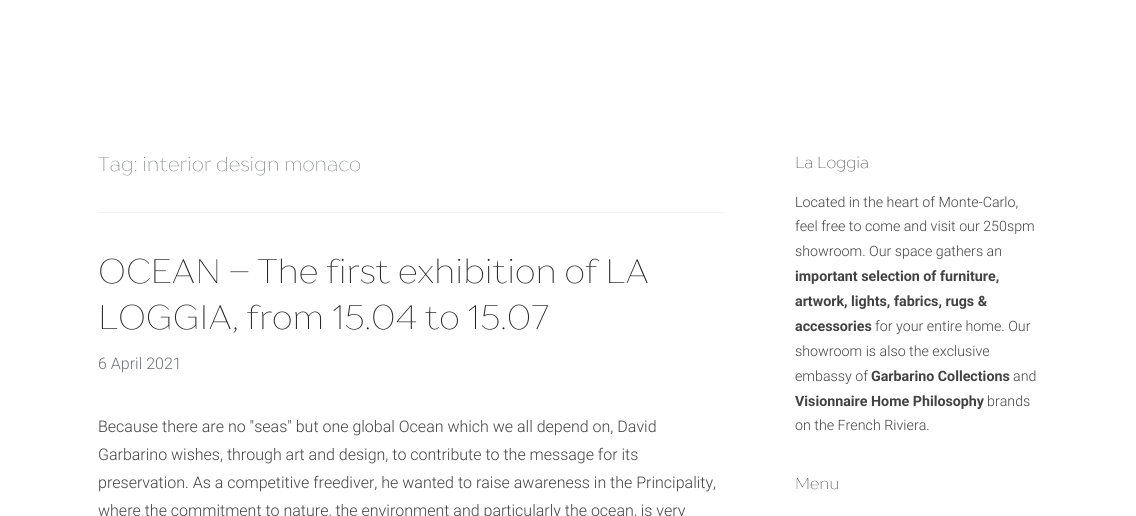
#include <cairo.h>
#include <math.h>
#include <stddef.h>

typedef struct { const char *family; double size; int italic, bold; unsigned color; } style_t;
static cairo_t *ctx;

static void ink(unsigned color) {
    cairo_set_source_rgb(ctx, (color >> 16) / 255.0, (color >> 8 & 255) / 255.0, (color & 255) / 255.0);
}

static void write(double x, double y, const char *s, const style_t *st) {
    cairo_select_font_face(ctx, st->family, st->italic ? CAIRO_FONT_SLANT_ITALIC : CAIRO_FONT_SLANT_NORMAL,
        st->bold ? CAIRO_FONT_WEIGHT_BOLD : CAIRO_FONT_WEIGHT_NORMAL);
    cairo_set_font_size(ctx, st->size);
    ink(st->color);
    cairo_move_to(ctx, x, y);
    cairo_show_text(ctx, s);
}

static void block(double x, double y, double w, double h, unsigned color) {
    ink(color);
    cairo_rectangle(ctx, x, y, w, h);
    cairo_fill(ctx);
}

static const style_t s1 = {"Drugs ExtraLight", 20, 0, 0, 0x6e7273};
static const style_t s2 = {"Drugs ExtraLight", 34, 0, 0, 0x222221};
static const style_t s3 = {"Roboto Light", 16, 0, 0, 0x6e7273};
static const style_t s4 = {"Roboto Light", 16, 0, 0, 0x424242};
static const style_t s5 = {"Drugs ExtraLight", 16, 0, 0, 0x222221};
static const style_t s6 = {"Roboto Light", 14.25, 0, 0, 0x424242};
static const style_t s7 = {"Roboto", 14.25, 0, 1, 0x424242};

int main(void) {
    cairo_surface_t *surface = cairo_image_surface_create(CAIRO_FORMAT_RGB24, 1136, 516);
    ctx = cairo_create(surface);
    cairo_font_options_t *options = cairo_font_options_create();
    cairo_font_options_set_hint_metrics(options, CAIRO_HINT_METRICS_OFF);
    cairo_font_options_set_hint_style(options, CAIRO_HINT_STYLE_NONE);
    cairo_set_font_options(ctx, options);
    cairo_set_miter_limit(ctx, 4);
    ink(0xffffff);
    cairo_paint(ctx);
    write(98, 171, "Tag: interior design monaco", &s1);
    block(98, 212, 627, 1, 0xf2f2f2);
    write(98, 283, "OCEAN – The first exhibition of LA", &s2);
    write(98, 329, "LOGGIA, from 15.04 to 15.07", &s2);
    write(98, 369, "6 April 2021", &s3);
    write(98, 432, "Because there are no \"seas\" but one global Ocean which we all depend on, David", &s4);
    write(98, 460, "Garbarino wishes, through art and design, to contribute to the message for its", &s4);
    write(98, 488, "preservation. As a competitive freediver, he wanted to raise awareness in the Principality,", &s4);
    write(98, 516, "where the commitment to nature, the environment and particularly the ocean, is very", &s4);
    write(795, 168, "La Loggia", &s5);
    write(795, 207, "Located in the heart of Monte-Carlo,", &s6);
    write(795, 231, "feel free to come and visit our 250spm", &s6);
    write(795, 256, "showroom. Our space gathers an", &s6);
    write(795, 281, "important selection of furniture,", &s7);
    write(795, 306, "artwork, lights, fabrics, rugs &", &s7);
    write(795, 331, "accessories", &s7);
    write(875, 331, "for your entire home. Our", &s6);
    write(795, 356, "showroom is also the exclusive", &s6);
    write(795, 381, "embassy of", &s6);
    write(871, 381, "Garbarino Collections", &s7);
    write(1013, 381, "and", &s6);
    write(795, 406, "Visionnaire Home Philosophy", &s7);
    write(987, 406, "brands", &s6);
    write(795, 430, "on the French Riviera.", &s6);
    write(795, 489, "Menu", &s5);
    cairo_surface_write_to_png(surface, "screenshot.png");
    cairo_font_options_destroy(options);
    cairo_destroy(ctx);
    cairo_surface_destroy(surface);
    return 0;
}
